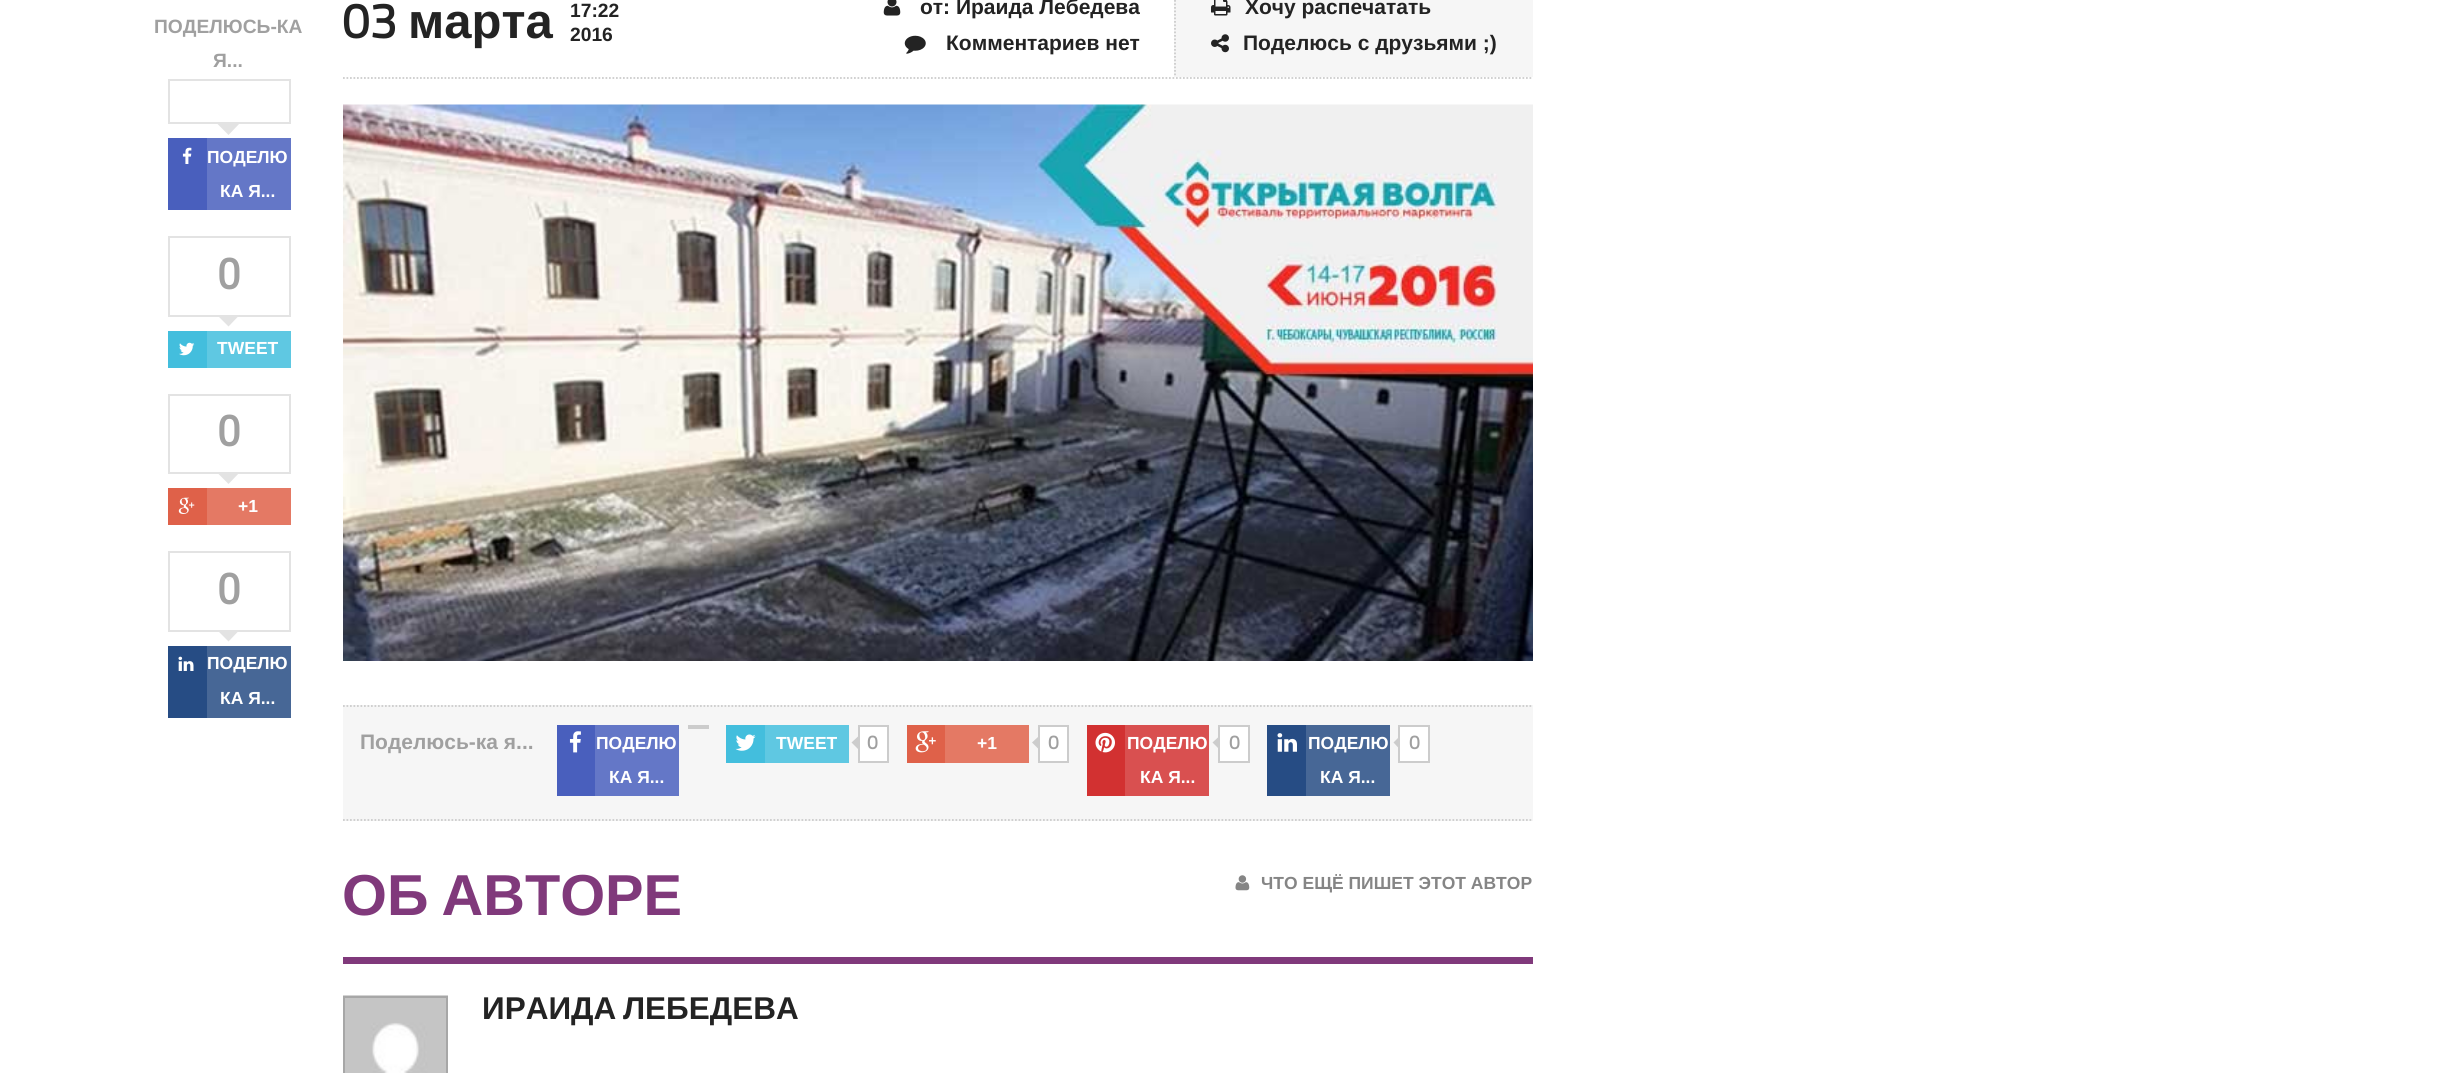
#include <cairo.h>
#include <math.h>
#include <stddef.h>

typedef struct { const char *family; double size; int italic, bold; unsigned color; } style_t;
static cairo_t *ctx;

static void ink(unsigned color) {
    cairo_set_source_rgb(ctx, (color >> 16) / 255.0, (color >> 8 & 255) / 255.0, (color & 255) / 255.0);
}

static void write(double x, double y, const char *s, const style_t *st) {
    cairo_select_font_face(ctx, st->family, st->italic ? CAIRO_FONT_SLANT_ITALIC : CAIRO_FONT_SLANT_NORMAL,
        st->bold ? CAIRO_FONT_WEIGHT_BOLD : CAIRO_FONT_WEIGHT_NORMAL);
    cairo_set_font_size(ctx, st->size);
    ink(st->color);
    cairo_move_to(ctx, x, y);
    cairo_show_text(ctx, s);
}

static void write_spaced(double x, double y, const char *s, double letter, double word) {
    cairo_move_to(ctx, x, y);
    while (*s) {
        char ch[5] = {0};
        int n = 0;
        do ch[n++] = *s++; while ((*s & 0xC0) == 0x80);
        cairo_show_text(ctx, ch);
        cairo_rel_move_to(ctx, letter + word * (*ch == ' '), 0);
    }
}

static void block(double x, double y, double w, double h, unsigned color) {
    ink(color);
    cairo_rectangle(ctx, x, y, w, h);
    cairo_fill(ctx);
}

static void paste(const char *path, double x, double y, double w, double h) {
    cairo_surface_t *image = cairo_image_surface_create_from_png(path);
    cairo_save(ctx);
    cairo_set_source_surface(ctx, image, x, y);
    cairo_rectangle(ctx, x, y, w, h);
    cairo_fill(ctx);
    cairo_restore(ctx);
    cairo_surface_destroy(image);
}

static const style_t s1 = {"Liberation Sans", 19.25, 0, 1, 0xa0a0a0};
static const style_t s2 = {"Liberation Sans", 17.5, 0, 1, 0xffffff};
static const style_t s3 = {"Roboto", 42, 0, 1, 0xa0a0a0};
static const style_t s4 = {"Titillium Web", 49, 0, 1, 0x232323};
static const style_t s5 = {"Liberation Sans", 49, 0, 1, 0x232323};
static const style_t s6 = {"Liberation Sans", 19.25, 0, 1, 0x232323};
static const style_t s7 = {"Liberation Sans", 21, 0, 1, 0x232323};
static const style_t s8 = {"Liberation Sans", 21, 0, 1, 0xa0a0a0};
static const style_t s9 = {"Titillium Web", 19.25, 0, 1, 0xa0a0a0};
static const style_t s10 = {"Liberation Sans", 17.5, 0, 1, 0x858585};

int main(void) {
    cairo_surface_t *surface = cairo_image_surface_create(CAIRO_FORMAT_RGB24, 2451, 1073);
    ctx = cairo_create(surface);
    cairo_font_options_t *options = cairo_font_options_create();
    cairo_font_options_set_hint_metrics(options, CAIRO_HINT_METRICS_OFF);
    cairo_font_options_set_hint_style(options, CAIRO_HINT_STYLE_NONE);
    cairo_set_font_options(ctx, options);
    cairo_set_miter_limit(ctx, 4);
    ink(0xffffff);
    cairo_paint(ctx);
    write(154, 33, "ПОДЕЛЮСЬ-КА", &s1);
    write(213, 67, "Я...", &s1);
    cairo_rectangle(ctx, 169, 80, 121, 43);
    ink(0xe3e3e3);
    cairo_stroke(ctx);
    cairo_save(ctx);
    cairo_rectangle(ctx, 170, 123, 119, 17);
    cairo_clip(ctx);
    cairo_new_path(ctx);
    cairo_move_to(ctx, 228.5, 110);
    cairo_line_to(ctx, 240.5, 122.5);
    cairo_line_to(ctx, 228.5, 135);
    cairo_line_to(ctx, 216, 122.5);
    cairo_close_path(ctx);
    cairo_fill(ctx);
    cairo_restore(ctx);
    block(168, 138, 39, 72, 0x495fbd);
    paste("pic1.png", 182, 147, 10, 17);
    block(207, 138, 84, 72, 0x6477c7);
    write(207, 163, "ПОДЕЛЮ", &s2);
    write(220, 197, "КА Я...", &s2);
    cairo_rectangle(ctx, 169, 237, 121, 79);
    ink(0xe3e3e3);
    cairo_stroke(ctx);
    write(217, 289, "0", &s3);
    cairo_save(ctx);
    cairo_rectangle(ctx, 170, 315, 119, 18);
    cairo_clip(ctx);
    ink(0xe3e3e3);
    cairo_new_path(ctx);
    cairo_move_to(ctx, 228.5, 302);
    cairo_line_to(ctx, 240.5, 314);
    cairo_line_to(ctx, 228.5, 326.5);
    cairo_line_to(ctx, 216, 314);
    cairo_close_path(ctx);
    cairo_fill(ctx);
    cairo_restore(ctx);
    block(168, 331, 39, 37, 0x43bedd);
    paste("pic2.png", 179, 342, 16, 14);
    block(207, 331, 84, 37, 0x5fc8e2);
    write(217, 354, "TWEET", &s2);
    cairo_rectangle(ctx, 169, 395, 121, 78);
    ink(0xe3e3e3);
    cairo_stroke(ctx);
    write(217, 446, "0", &s3);
    cairo_save(ctx);
    cairo_rectangle(ctx, 170, 473, 119, 17);
    cairo_clip(ctx);
    ink(0xe3e3e3);
    cairo_new_path(ctx);
    cairo_move_to(ctx, 228.5, 459.5);
    cairo_line_to(ctx, 240.5, 471.5);
    cairo_line_to(ctx, 228.5, 484);
    cairo_line_to(ctx, 216, 471.5);
    cairo_close_path(ctx);
    cairo_fill(ctx);
    cairo_restore(ctx);
    block(168, 488, 39, 37, 0xdf6149);
    paste("pic3.png", 178, 497, 17, 17);
    block(207, 488, 84, 37, 0xe47964);
    write(238, 512, "+1", &s2);
    cairo_rectangle(ctx, 169, 552, 121, 79);
    ink(0xe3e3e3);
    cairo_stroke(ctx);
    write(217, 604, "0", &s3);
    cairo_save(ctx);
    cairo_rectangle(ctx, 170, 630, 119, 18);
    cairo_clip(ctx);
    ink(0xe3e3e3);
    cairo_new_path(ctx);
    cairo_move_to(ctx, 228.5, 617);
    cairo_line_to(ctx, 240.5, 629);
    cairo_line_to(ctx, 228.5, 641.5);
    cairo_line_to(ctx, 216, 629);
    cairo_close_path(ctx);
    cairo_fill(ctx);
    cairo_restore(ctx);
    block(168, 646, 39, 72, 0x264c84);
    paste("pic4.png", 178, 656, 16, 15);
    block(207, 646, 84, 72, 0x476796);
    write(207, 669, "ПОДЕЛЮ", &s2);
    write(220, 704, "КА Я...", &s2);
    cairo_new_path(ctx);
    cairo_move_to(ctx, 343, 78);
    cairo_line_to(ctx, 1533, 78);
    ink(0xcccccc);
    cairo_set_line_width(ctx, 1.8);
    cairo_set_dash(ctx, (double[]){1.75, 1.75}, 2, 0);
    cairo_stroke(ctx);
    write(342, 38, "03", &s4);
    write(408, 38, "марта", &s5);
    write(570, 17, "17:22", &s6);
    write(570, 41, "2016", &s6);
    paste("pic5.png", 883, 0, 18, 16);
    write(920, 14, "от: Ираида Лебедева", &s7);
    paste("pic6.png", 904, 35, 22, 19);
    write(946, 50, "Комментариев нет", &s7);
    block(1174, 0, 359, 77, 0xf6f6f6);
    cairo_new_path(ctx);
    cairo_move_to(ctx, 1175, -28);
    cairo_line_to(ctx, 1175, 77);
    ink(0xcccccc);
    cairo_stroke(ctx);
    paste("pic7.png", 1211, 0, 20, 16);
    write(1245, 14, "Хочу распечатать", &s7);
    paste("pic8.png", 1211, 34, 18, 19);
    write(1243, 50, "Поделюсь с друзьями ;)", &s7);
    paste("pic9.png", 343, 104, 1190, 557);
    block(343, 705, 1190, 116, 0xf6f6f6);
    cairo_new_path(ctx);
    cairo_move_to(ctx, 343, 706);
    cairo_line_to(ctx, 1533, 706);
    ink(0xcccccc);
    cairo_stroke(ctx);
    cairo_new_path(ctx);
    cairo_move_to(ctx, 343, 820);
    cairo_line_to(ctx, 1533, 820);
    cairo_stroke(ctx);
    write(360, 749, "Поделюсь-ка я...", &s8);
    block(688, 725, 21, 4, 0xcccccc);
    block(557, 725, 38, 71, 0x495fbd);
    paste("pic10.png", 569, 731, 12, 22);
    block(595, 725, 84, 71, 0x6477c7);
    write(596, 749, "ПОДЕЛЮ", &s2);
    write(609, 783, "КА Я...", &s2);
    block(726, 725, 39, 38, 0x43bedd);
    paste("pic11.png", 735, 734, 21, 17);
    block(765, 725, 84, 38, 0x5fc8e2);
    write(776, 749, "TWEET", &s2);
    cairo_rectangle(ctx, 859, 726, 29, 36);
    cairo_fill_preserve(ctx);
    ink(0xcccccc);
    cairo_set_line_width(ctx, 2);
    cairo_set_dash(ctx, NULL, 0, 0);
    cairo_stroke(ctx);
    cairo_save(ctx);
    cairo_rectangle(ctx, 851, 726, 8, 35);
    cairo_clip(ctx);
    cairo_new_path(ctx);
    cairo_move_to(ctx, 858, 736.5);
    cairo_line_to(ctx, 864, 742.5);
    cairo_line_to(ctx, 858, 749);
    cairo_line_to(ctx, 851.5, 742.5);
    cairo_close_path(ctx);
    cairo_fill(ctx);
    cairo_restore(ctx);
    write(867, 749, "0", &s9);
    block(907, 725, 38, 38, 0xdf6149);
    paste("pic12.png", 915, 731, 21, 22);
    block(945, 725, 84, 38, 0xe47964);
    write(977, 749, "+1", &s2);
    cairo_rectangle(ctx, 1039, 726, 29, 36);
    cairo_fill_preserve(ctx);
    ink(0xcccccc);
    cairo_stroke(ctx);
    cairo_save(ctx);
    cairo_rectangle(ctx, 1031, 726, 9, 35);
    cairo_clip(ctx);
    cairo_new_path(ctx);
    cairo_move_to(ctx, 1038.5, 736.5);
    cairo_line_to(ctx, 1044.5, 742.5);
    cairo_line_to(ctx, 1038.5, 749);
    cairo_line_to(ctx, 1032, 742.5);
    cairo_close_path(ctx);
    cairo_fill(ctx);
    cairo_restore(ctx);
    write(1048, 749, "0", &s9);
    block(1087, 725, 38, 71, 0xd23131);
    paste("pic13.png", 1095, 732, 20, 21);
    block(1125, 725, 84, 71, 0xd95050);
    write(1127, 749, "ПОДЕЛЮ", &s2);
    write(1140, 783, "КА Я...", &s2);
    cairo_rectangle(ctx, 1219, 726, 30, 36);
    cairo_fill_preserve(ctx);
    ink(0xcccccc);
    cairo_stroke(ctx);
    cairo_save(ctx);
    cairo_rectangle(ctx, 1211, 726, 9, 35);
    cairo_clip(ctx);
    cairo_new_path(ctx);
    cairo_move_to(ctx, 1219, 736.5);
    cairo_line_to(ctx, 1225, 742.5);
    cairo_line_to(ctx, 1219, 749);
    cairo_line_to(ctx, 1212.5, 742.5);
    cairo_close_path(ctx);
    cairo_fill(ctx);
    cairo_restore(ctx);
    write(1229, 749, "0", &s9);
    block(1267, 725, 39, 71, 0x264c84);
    paste("pic14.png", 1277, 733, 20, 19);
    block(1306, 725, 84, 71, 0x476796);
    write(1308, 749, "ПОДЕЛЮ", &s2);
    write(1320, 783, "КА Я...", &s2);
    cairo_rectangle(ctx, 1399, 726, 30, 36);
    cairo_fill_preserve(ctx);
    ink(0xcccccc);
    cairo_stroke(ctx);
    cairo_save(ctx);
    cairo_rectangle(ctx, 1391, 726, 9, 35);
    cairo_clip(ctx);
    cairo_new_path(ctx);
    cairo_move_to(ctx, 1399.5, 736.5);
    cairo_line_to(ctx, 1405.5, 742.5);
    cairo_line_to(ctx, 1399.5, 749);
    cairo_line_to(ctx, 1393.5, 742.5);
    cairo_close_path(ctx);
    cairo_fill(ctx);
    cairo_restore(ctx);
    write(1409, 749, "0", &s9);
    block(343, 957, 1190, 7, 0x80397b);
    cairo_select_font_face(ctx, "Liberation Sans", CAIRO_FONT_SLANT_NORMAL, CAIRO_FONT_WEIGHT_BOLD);
    cairo_set_font_size(ctx, 57.75);
    write_spaced(342, 915, "ОБ АВТОРЕ", 0, -3);
    paste("pic15.png", 1235, 875, 15, 16);
    write(1261, 889, "ЧТО ЕЩЁ ПИШЕТ ЭТОТ АВТОР", &s10);
    paste("pic16.png", 343, 995, 105, 78);
    cairo_rectangle(ctx, 344, 997, 103, 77);
    ink(0xa7a7a7);
    cairo_stroke(ctx);
    cairo_set_font_size(ctx, 31.5);
    ink(0x232323);
    write_spaced(482, 1019, "ИРАИДА ЛЕБЕДЕВА", 0, -2);
    cairo_surface_write_to_png(surface, "screenshot.png");
    cairo_font_options_destroy(options);
    cairo_destroy(ctx);
    cairo_surface_destroy(surface);
    return 0;
}
